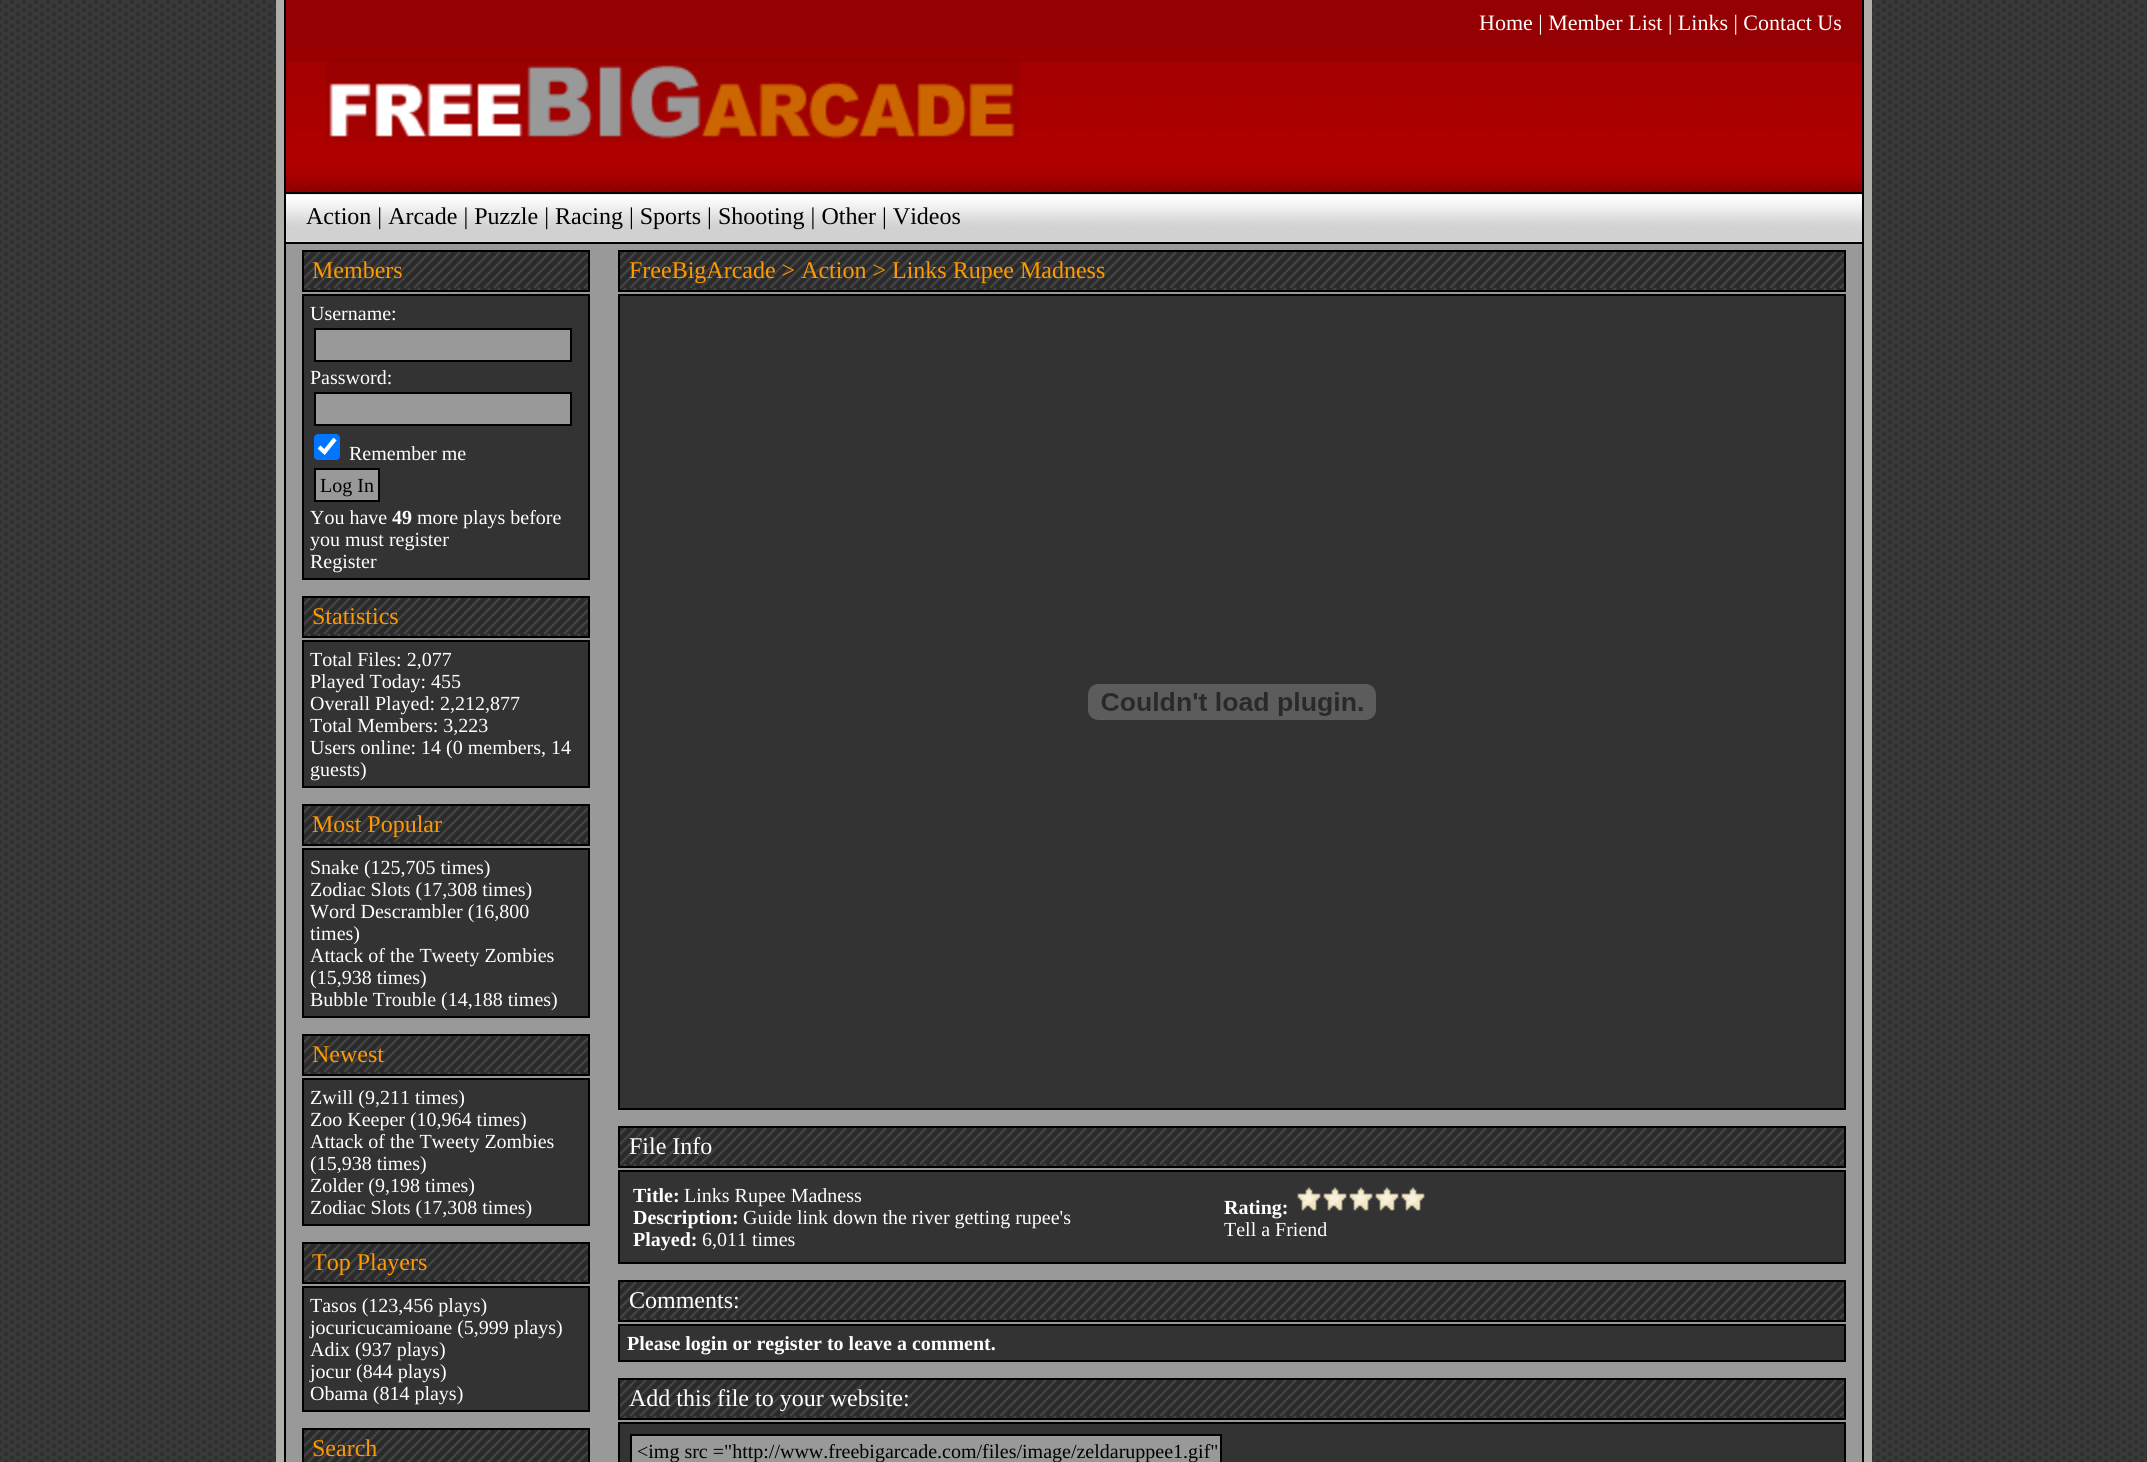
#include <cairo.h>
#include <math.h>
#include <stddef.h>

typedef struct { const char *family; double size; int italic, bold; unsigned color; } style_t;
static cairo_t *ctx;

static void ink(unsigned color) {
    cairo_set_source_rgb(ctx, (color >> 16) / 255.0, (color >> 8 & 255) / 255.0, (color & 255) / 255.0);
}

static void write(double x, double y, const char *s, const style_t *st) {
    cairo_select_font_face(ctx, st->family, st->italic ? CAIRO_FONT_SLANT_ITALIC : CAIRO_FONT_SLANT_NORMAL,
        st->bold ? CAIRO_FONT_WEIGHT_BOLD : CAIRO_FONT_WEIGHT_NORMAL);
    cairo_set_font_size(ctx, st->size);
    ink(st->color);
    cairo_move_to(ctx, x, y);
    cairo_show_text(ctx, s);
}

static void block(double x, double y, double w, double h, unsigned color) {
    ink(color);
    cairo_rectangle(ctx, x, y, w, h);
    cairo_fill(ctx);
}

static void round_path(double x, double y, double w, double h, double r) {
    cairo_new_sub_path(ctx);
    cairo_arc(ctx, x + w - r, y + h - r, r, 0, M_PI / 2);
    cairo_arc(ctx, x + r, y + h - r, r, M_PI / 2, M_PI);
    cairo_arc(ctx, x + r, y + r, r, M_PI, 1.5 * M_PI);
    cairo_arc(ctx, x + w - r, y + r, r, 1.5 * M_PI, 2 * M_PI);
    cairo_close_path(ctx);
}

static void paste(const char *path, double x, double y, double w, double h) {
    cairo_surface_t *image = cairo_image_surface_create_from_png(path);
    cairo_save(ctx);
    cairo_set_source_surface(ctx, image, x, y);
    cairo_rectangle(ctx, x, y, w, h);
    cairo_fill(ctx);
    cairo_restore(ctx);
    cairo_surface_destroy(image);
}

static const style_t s1 = {"Liberation Serif", 22, 0, 0, 0xffffff};
static const style_t s2 = {"Liberation Serif", 24, 0, 0, 0x000000};
static const style_t s3 = {"Liberation Serif", 24, 0, 0, 0xff9900};
static const style_t s4 = {"Liberation Serif", 20, 0, 0, 0xffffff};
static const style_t s5 = {"Liberation Serif", 20, 0, 0, 0x000000};
static const style_t s6 = {"Liberation Serif", 20, 0, 1, 0xffffff};
static const style_t s7 = {"Liberation Serif", 24, 0, 0, 0xffffff};

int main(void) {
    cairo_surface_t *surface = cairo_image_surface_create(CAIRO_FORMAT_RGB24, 2147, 1462);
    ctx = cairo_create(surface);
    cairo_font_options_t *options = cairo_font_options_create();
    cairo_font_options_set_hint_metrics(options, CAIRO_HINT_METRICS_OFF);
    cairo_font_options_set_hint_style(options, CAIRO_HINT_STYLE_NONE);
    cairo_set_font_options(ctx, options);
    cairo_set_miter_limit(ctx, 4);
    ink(0xffffff);
    cairo_paint(ctx);
    paste("pic1.png", 0, 0, 2147, 1462);
    block(1864, 0, 8, 1462, 0xb0afaa);
    block(276, 0, 8, 1462, 0xb0afaa);
    block(286, 0, 1576, 48, 0x950002);
    paste("pic2.png", 286, 48, 1576, 144);
    block(1862, 0, 2, 192, 0x000000);
    block(284, 0, 2, 192, 0x000000);
    write(1479, 30, "Home | Member List | Links | Contact Us", &s1);
    paste("pic3.png", 326, 60, 694, 82);
    paste("pic4.png", 286, 194, 1576, 48);
    block(284, 192, 1580, 2, 0x000000);
    block(1862, 192, 2, 50, 0x000000);
    block(284, 192, 2, 50, 0x000000);
    write(306, 224, "Action | Arcade | Puzzle | Racing | Sports | Shooting | Other | Videos", &s2);
    block(286, 244, 1576, 1218, 0x999999);
    block(284, 242, 1580, 2, 0x000000);
    block(1862, 242, 2, 1220, 0x000000);
    block(284, 242, 2, 1220, 0x000000);
    paste("pic5.png", 304, 252, 284, 38);
    cairo_rectangle(ctx, 303, 251, 286, 40);
    cairo_stroke(ctx);
    write(312, 278, "Members", &s3);
    ink(0x333333);
    cairo_rectangle(ctx, 303, 295, 286, 284);
    cairo_fill_preserve(ctx);
    ink(0x000000);
    cairo_stroke(ctx);
    write(310, 320, "Username:", &s4);
    ink(0x999999);
    cairo_rectangle(ctx, 315, 329, 256, 32);
    cairo_fill_preserve(ctx);
    ink(0x000000);
    cairo_stroke(ctx);
    write(310, 384, "Password:", &s4);
    ink(0x999999);
    cairo_rectangle(ctx, 315, 393, 256, 32);
    cairo_fill_preserve(ctx);
    ink(0x000000);
    cairo_stroke(ctx);
    ink(0x0075ff);
    round_path(314, 434, 26, 26, 4);
    cairo_fill(ctx);
    cairo_new_path(ctx);
    cairo_move_to(ctx, 319, 447);
    cairo_line_to(ctx, 324.5, 452);
    cairo_line_to(ctx, 335, 439);
    ink(0xffffff);
    cairo_set_line_width(ctx, 4.2);
    cairo_stroke(ctx);
    write(349, 460, "Remember me", &s4);
    ink(0x999999);
    cairo_rectangle(ctx, 315, 469, 64, 32);
    cairo_fill_preserve(ctx);
    ink(0x000000);
    cairo_set_line_width(ctx, 2);
    cairo_stroke(ctx);
    write(320, 492, "Log In", &s5);
    write(310, 524, "You have", &s4);
    write(392, 524, "49", &s6);
    write(417, 524, "more plays before", &s4);
    write(310, 546, "you must register", &s4);
    write(310, 568, "Register", &s4);
    paste("pic5.png", 304, 598, 284, 38);
    cairo_rectangle(ctx, 303, 597, 286, 40);
    ink(0x000000);
    cairo_stroke(ctx);
    write(312, 624, "Statistics", &s3);
    ink(0x333333);
    cairo_rectangle(ctx, 303, 641, 286, 146);
    cairo_fill_preserve(ctx);
    ink(0x000000);
    cairo_stroke(ctx);
    write(310, 666, "Total Files: 2,077", &s4);
    write(310, 688, "Played Today: 455", &s4);
    write(310, 710, "Overall Played: 2,212,877", &s4);
    write(310, 732, "Total Members: 3,223", &s4);
    write(310, 754, "Users online: 14 (0 members, 14", &s4);
    write(310, 776, "guests)", &s4);
    paste("pic5.png", 304, 806, 284, 38);
    cairo_rectangle(ctx, 303, 805, 286, 40);
    ink(0x000000);
    cairo_stroke(ctx);
    write(312, 832, "Most Popular", &s3);
    ink(0x333333);
    cairo_rectangle(ctx, 303, 849, 286, 168);
    cairo_fill_preserve(ctx);
    ink(0x000000);
    cairo_stroke(ctx);
    write(310, 874, "Snake (125,705 times)", &s4);
    write(310, 896, "Zodiac Slots (17,308 times)", &s4);
    write(310, 918, "Word Descrambler (16,800", &s4);
    write(310, 940, "times)", &s4);
    write(310, 962, "Attack of the Tweety Zombies", &s4);
    write(310, 984, "(15,938 times)", &s4);
    write(310, 1006, "Bubble Trouble (14,188 times)", &s4);
    paste("pic5.png", 304, 1036, 284, 38);
    cairo_rectangle(ctx, 303, 1035, 286, 40);
    ink(0x000000);
    cairo_stroke(ctx);
    write(312, 1062, "Newest", &s3);
    ink(0x333333);
    cairo_rectangle(ctx, 303, 1079, 286, 146);
    cairo_fill_preserve(ctx);
    ink(0x000000);
    cairo_stroke(ctx);
    write(310, 1104, "Zwill (9,211 times)", &s4);
    write(310, 1126, "Zoo Keeper (10,964 times)", &s4);
    write(310, 1148, "Attack of the Tweety Zombies", &s4);
    write(310, 1170, "(15,938 times)", &s4);
    write(310, 1192, "Zolder (9,198 times)", &s4);
    write(310, 1214, "Zodiac Slots (17,308 times)", &s4);
    paste("pic5.png", 304, 1244, 284, 38);
    cairo_rectangle(ctx, 303, 1243, 286, 40);
    ink(0x000000);
    cairo_stroke(ctx);
    write(312, 1270, "Top Players", &s3);
    ink(0x333333);
    cairo_rectangle(ctx, 303, 1287, 286, 124);
    cairo_fill_preserve(ctx);
    ink(0x000000);
    cairo_stroke(ctx);
    write(310, 1312, "Tasos (123,456 plays)", &s4);
    write(310, 1334, "jocuricucamioane (5,999 plays)", &s4);
    write(310, 1356, "Adix (937 plays)", &s4);
    write(310, 1378, "jocur (844 plays)", &s4);
    write(310, 1400, "Obama (814 plays)", &s4);
    paste("pic6.png", 304, 1430, 284, 32);
    cairo_rectangle(ctx, 303, 1429, 286, 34);
    ink(0x000000);
    cairo_stroke(ctx);
    write(312, 1456, "Search", &s3);
    paste("pic7.png", 620, 252, 1224, 38);
    cairo_rectangle(ctx, 619, 251, 1226, 40);
    ink(0x000000);
    cairo_stroke(ctx);
    write(629, 278, "FreeBigArcade > Action > Links Rupee Madness", &s3);
    ink(0x333333);
    cairo_rectangle(ctx, 619, 295, 1226, 814);
    cairo_fill_preserve(ctx);
    ink(0x000000);
    cairo_stroke(ctx);
    paste("pic8.png", 1088, 684, 288, 36);
    paste("pic7.png", 620, 1128, 1224, 38);
    cairo_rectangle(ctx, 619, 1127, 1226, 40);
    cairo_stroke(ctx);
    write(629, 1154, "File Info", &s7);
    ink(0x333333);
    cairo_rectangle(ctx, 619, 1171, 1226, 92);
    cairo_fill_preserve(ctx);
    ink(0x000000);
    cairo_stroke(ctx);
    write(633, 1202, "Title:", &s6);
    write(684, 1202, "Links Rupee Madness", &s4);
    write(633, 1224, "Description:", &s6);
    write(743, 1224, "Guide link down the river getting rupee's", &s4);
    write(633, 1246, "Played:", &s6);
    write(702, 1246, "6,011 times", &s4);
    write(1224, 1214, "Rating:", &s6);
    paste("pic9.png", 1297, 1187, 128, 24);
    write(1224, 1236, "Tell a Friend", &s4);
    paste("pic7.png", 620, 1282, 1224, 38);
    cairo_rectangle(ctx, 619, 1281, 1226, 40);
    ink(0x000000);
    cairo_stroke(ctx);
    write(629, 1308, "Comments:", &s7);
    ink(0x333333);
    cairo_rectangle(ctx, 619, 1325, 1226, 36);
    cairo_fill_preserve(ctx);
    ink(0x000000);
    cairo_stroke(ctx);
    write(627, 1350, "Please login or register to leave a comment.", &s6);
    paste("pic7.png", 620, 1380, 1224, 38);
    cairo_rectangle(ctx, 619, 1379, 1226, 40);
    ink(0x000000);
    cairo_stroke(ctx);
    write(629, 1406, "Add this file to your website:", &s7);
    ink(0x333333);
    cairo_rectangle(ctx, 619, 1423, 1226, 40);
    cairo_fill_preserve(ctx);
    ink(0x000000);
    cairo_stroke(ctx);
    ink(0x999999);
    cairo_rectangle(ctx, 631, 1435, 590, 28);
    cairo_fill_preserve(ctx);
    ink(0x000000);
    cairo_stroke(ctx);
    write(637, 1458, "<img src =\"http://www.freebigarcade.com/files/image/zeldaruppee1.gif\"", &s5);
    cairo_surface_write_to_png(surface, "screenshot.png");
    cairo_font_options_destroy(options);
    cairo_destroy(ctx);
    cairo_surface_destroy(surface);
    return 0;
}
